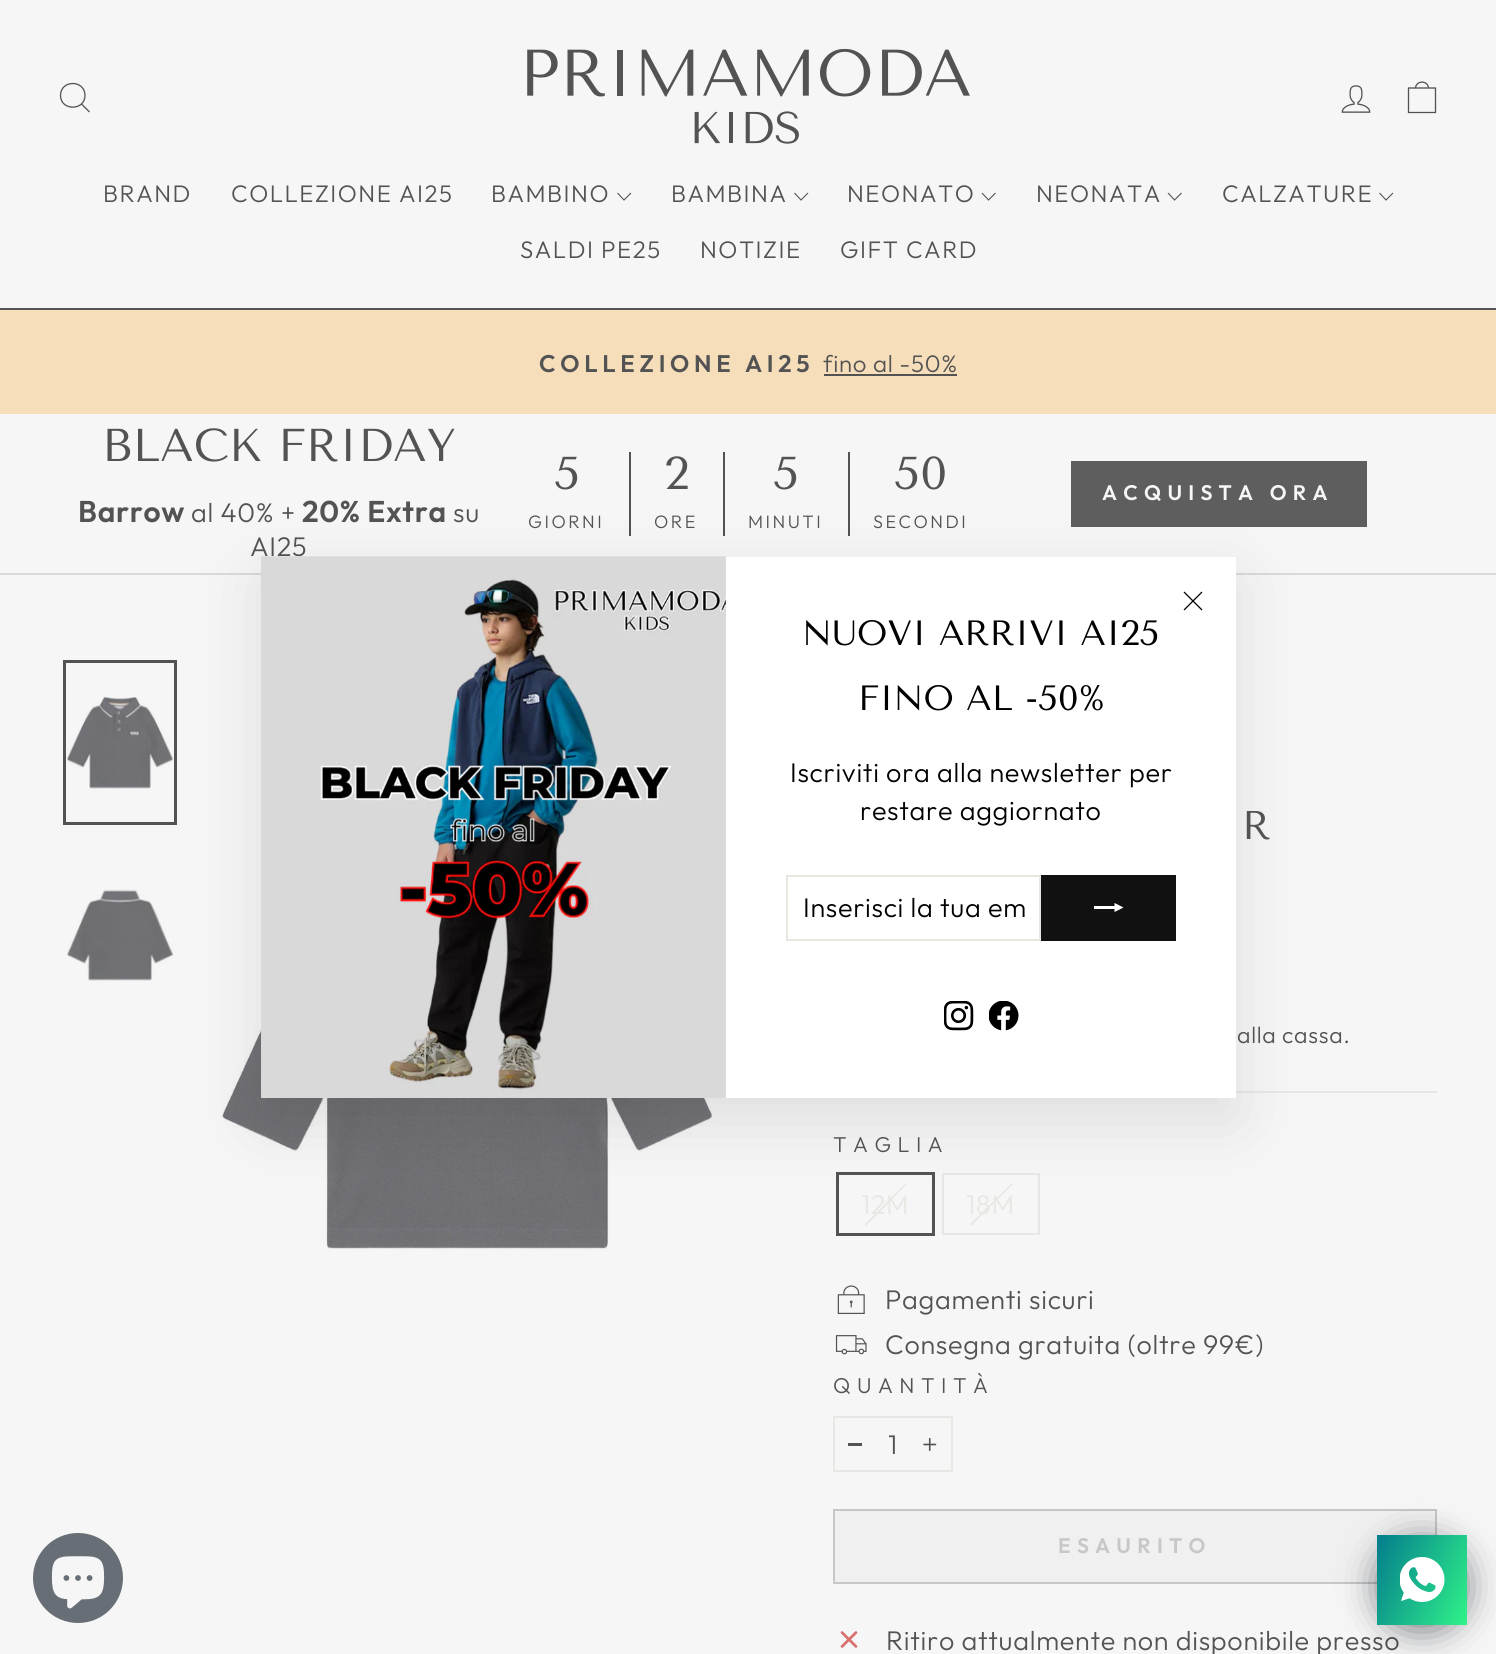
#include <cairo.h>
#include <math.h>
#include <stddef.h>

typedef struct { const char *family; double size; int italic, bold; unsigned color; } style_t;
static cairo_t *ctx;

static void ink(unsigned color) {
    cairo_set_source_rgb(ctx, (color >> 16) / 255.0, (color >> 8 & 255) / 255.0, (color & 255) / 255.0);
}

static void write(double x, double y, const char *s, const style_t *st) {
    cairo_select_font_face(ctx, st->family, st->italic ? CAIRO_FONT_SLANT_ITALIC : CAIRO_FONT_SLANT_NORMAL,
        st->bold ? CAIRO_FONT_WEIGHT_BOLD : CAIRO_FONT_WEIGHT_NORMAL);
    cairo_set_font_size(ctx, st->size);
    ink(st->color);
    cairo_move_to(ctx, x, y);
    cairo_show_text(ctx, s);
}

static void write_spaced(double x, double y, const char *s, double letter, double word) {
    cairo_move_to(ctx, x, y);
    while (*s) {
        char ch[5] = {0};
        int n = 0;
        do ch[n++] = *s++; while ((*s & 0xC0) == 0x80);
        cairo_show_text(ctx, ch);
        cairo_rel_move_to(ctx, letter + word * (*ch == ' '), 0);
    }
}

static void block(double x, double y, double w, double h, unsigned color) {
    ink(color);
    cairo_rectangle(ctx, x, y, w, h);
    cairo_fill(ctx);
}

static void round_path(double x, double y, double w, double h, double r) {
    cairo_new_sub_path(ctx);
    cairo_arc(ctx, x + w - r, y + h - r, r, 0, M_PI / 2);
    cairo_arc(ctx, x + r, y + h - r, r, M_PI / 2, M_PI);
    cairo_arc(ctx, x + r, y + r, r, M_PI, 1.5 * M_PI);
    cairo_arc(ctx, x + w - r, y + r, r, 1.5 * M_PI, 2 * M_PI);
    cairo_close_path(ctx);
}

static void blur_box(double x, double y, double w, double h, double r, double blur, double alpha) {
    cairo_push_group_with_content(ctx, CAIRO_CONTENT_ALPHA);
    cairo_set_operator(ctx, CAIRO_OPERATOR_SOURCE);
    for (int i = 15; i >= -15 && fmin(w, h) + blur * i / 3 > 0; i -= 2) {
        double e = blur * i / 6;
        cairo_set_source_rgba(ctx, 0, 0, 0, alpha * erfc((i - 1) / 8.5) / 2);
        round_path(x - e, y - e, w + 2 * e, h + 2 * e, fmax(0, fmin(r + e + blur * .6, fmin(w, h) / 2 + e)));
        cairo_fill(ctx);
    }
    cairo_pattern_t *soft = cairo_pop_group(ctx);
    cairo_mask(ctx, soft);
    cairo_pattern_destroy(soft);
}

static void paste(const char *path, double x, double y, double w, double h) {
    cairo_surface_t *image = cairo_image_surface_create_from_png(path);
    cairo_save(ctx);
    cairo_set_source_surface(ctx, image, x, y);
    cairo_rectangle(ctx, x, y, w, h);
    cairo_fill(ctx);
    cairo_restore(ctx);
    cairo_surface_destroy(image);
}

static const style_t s1 = {"Tenor Sans", 46, 0, 0, 0x535353};
static const style_t s2 = {"Tenor Sans", 35.1, 0, 0, 0x000000};
static const style_t s3 = {"Tenor Sans", 40, 0, 0, 0x535353};

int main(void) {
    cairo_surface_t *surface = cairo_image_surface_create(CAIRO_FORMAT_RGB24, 1496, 1654);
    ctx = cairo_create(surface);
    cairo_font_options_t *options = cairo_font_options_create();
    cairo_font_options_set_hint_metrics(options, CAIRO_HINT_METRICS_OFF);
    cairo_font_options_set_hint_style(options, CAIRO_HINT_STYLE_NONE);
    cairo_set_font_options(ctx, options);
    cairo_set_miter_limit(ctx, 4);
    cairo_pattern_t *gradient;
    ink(0xf6f6f6);
    cairo_paint(ctx);
    ink(0x676e75);
    cairo_arc(ctx, 78, 1578, 45, 0, 2 * M_PI);
    cairo_fill(ctx);
    paste("pic1.png", 51, 1556, 54, 53);
    block(0, 308, 1496, 2, 0x535353);
    block(0, 310, 1496, 104, 0xf6deba);
    ink(0x535353);
    blur_box(0, 0, 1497, 308, 0, 1, 0.2);
    block(0, 0, 1496, 308, 0xf6f6f6);
    cairo_new_path(ctx);
    cairo_move_to(ctx, 85, 95.5);
    cairo_curve_to(ctx, 85, 111, 60.5, 111, 60.5, 95.5);
    cairo_curve_to(ctx, 60.5, 79.5, 85, 79.5, 85, 95.5);
    cairo_close_path(ctx);
    cairo_move_to(ctx, 89.5, 112);
    cairo_line_to(ctx, 81.5, 104);
    ink(0x535353);
    cairo_set_line_width(ctx, 1.3);
    cairo_stroke(ctx);
    paste("pic2.png", 527, 48, 443, 96);
    paste("pic3.png", 1341, 85, 30, 28);
    cairo_new_path(ctx);
    cairo_move_to(ctx, 1408.5, 88);
    cairo_line_to(ctx, 1435.5, 88);
    cairo_line_to(ctx, 1435.5, 112.5);
    cairo_line_to(ctx, 1408.5, 112.5);
    cairo_close_path(ctx);
    cairo_move_to(ctx, 1415.5, 88.5);
    cairo_curve_to(ctx, 1415.5, 80, 1428.5, 80, 1428.5, 88.5);
    cairo_stroke(ctx);
    cairo_select_font_face(ctx, "Outfit Light", CAIRO_FONT_SLANT_NORMAL, CAIRO_FONT_WEIGHT_NORMAL);
    cairo_set_font_size(ctx, 24);
    write_spaced(103, 202, "BRAND", 1.5, 0);
    write_spaced(231, 202, "COLLEZIONE AI25", 1.5, 0);
    write_spaced(491, 202, "BAMBINO", 1.5, 0);
    cairo_new_path(ctx);
    cairo_move_to(ctx, 617.5, 193);
    cairo_line_to(ctx, 624, 200);
    cairo_line_to(ctx, 631, 193);
    cairo_set_line_width(ctx, 1.1);
    cairo_stroke(ctx);
    write_spaced(671, 202, "BAMBINA", 1.5, 0);
    cairo_new_path(ctx);
    cairo_move_to(ctx, 794.5, 193);
    cairo_line_to(ctx, 801, 200);
    cairo_line_to(ctx, 808, 193);
    cairo_stroke(ctx);
    write_spaced(847, 202, "NEONATO", 1.5, 0);
    cairo_new_path(ctx);
    cairo_move_to(ctx, 982, 193);
    cairo_line_to(ctx, 988.5, 200);
    cairo_line_to(ctx, 995.5, 193);
    cairo_stroke(ctx);
    write_spaced(1036, 202, "NEONATA", 1.5, 0);
    cairo_new_path(ctx);
    cairo_move_to(ctx, 1168, 193);
    cairo_line_to(ctx, 1174.5, 200);
    cairo_line_to(ctx, 1181.5, 193);
    cairo_stroke(ctx);
    write_spaced(1222, 202, "CALZATURE", 1.5, 0);
    cairo_new_path(ctx);
    cairo_move_to(ctx, 1379.5, 193);
    cairo_line_to(ctx, 1386, 200);
    cairo_line_to(ctx, 1393, 193);
    cairo_stroke(ctx);
    write_spaced(520, 258, "SALDI PE25", 1.5, 0);
    write_spaced(700, 258, "NOTIZIE", 1.5, 0);
    write_spaced(840, 258, "GIFT CARD", 1.5, 0);
    cairo_select_font_face(ctx, "Outfit SemiBold", CAIRO_FONT_SLANT_NORMAL, CAIRO_FONT_WEIGHT_NORMAL);
    write_spaced(539, 372, "COLLEZIONE AI25", 4.75, 0);
    cairo_select_font_face(ctx, "Outfit Light", CAIRO_FONT_SLANT_NORMAL, CAIRO_FONT_WEIGHT_NORMAL);
    write_spaced(823, 372, "fino al -50%", 0.7, 0);
    block(824, 374, 133, 2, 0x535353);
    block(0, 573, 1496, 2, 0xdadada);
    write(102, 461, "BLACK FRIDAY", &s1);
    cairo_select_font_face(ctx, "Outfit SemiBold", CAIRO_FONT_SLANT_NORMAL, CAIRO_FONT_WEIGHT_NORMAL);
    cairo_set_font_size(ctx, 30);
    write_spaced(78, 522, "Barrow", 0.7, 0);
    cairo_select_font_face(ctx, "Outfit Light", CAIRO_FONT_SLANT_NORMAL, CAIRO_FONT_WEIGHT_NORMAL);
    cairo_set_font_size(ctx, 27);
    write_spaced(191, 522, "al 40% +", 0.7, 0);
    cairo_select_font_face(ctx, "Outfit SemiBold", CAIRO_FONT_SLANT_NORMAL, CAIRO_FONT_WEIGHT_NORMAL);
    cairo_set_font_size(ctx, 30);
    write_spaced(302, 522, "20% Extra", 0.7, 0);
    cairo_select_font_face(ctx, "Outfit Light", CAIRO_FONT_SLANT_NORMAL, CAIRO_FONT_WEIGHT_NORMAL);
    cairo_set_font_size(ctx, 27);
    write_spaced(453, 522, "su", 0.7, 0);
    write_spaced(250, 556, "AI25", 0.7, 0);
    block(629, 452, 2, 84, 0x535353);
    write(554, 489, "5", &s1);
    cairo_select_font_face(ctx, "Outfit Light", CAIRO_FONT_SLANT_NORMAL, CAIRO_FONT_WEIGHT_NORMAL);
    cairo_set_font_size(ctx, 18);
    write_spaced(528, 528, "GIORNI", 2.5, 0);
    block(723, 452, 2, 84, 0x535353);
    write(664, 489, "2", &s1);
    cairo_select_font_face(ctx, "Outfit Light", CAIRO_FONT_SLANT_NORMAL, CAIRO_FONT_WEIGHT_NORMAL);
    cairo_set_font_size(ctx, 18);
    write_spaced(654, 528, "ORE", 2.5, 0);
    block(848, 452, 2, 84, 0x535353);
    write(773, 489, "5", &s1);
    cairo_select_font_face(ctx, "Outfit Light", CAIRO_FONT_SLANT_NORMAL, CAIRO_FONT_WEIGHT_NORMAL);
    cairo_set_font_size(ctx, 18);
    write_spaced(748, 528, "MINUTI", 2.5, 0);
    write(894, 489, "50", &s1);
    cairo_select_font_face(ctx, "Outfit Light", CAIRO_FONT_SLANT_NORMAL, CAIRO_FONT_WEIGHT_NORMAL);
    cairo_set_font_size(ctx, 18);
    write_spaced(873, 528, "SECONDI", 2.5, 0);
    block(1071, 461, 296, 66, 0x5e5e5e);
    cairo_select_font_face(ctx, "Outfit SemiBold", CAIRO_FONT_SLANT_NORMAL, CAIRO_FONT_WEIGHT_NORMAL);
    cairo_set_font_size(ctx, 21);
    ink(0xf6f6f6);
    write_spaced(1102, 500, "ACQUISTA ORA", 6.25, 0);
    paste("pic7.png", 66, 696, 108, 93);
    cairo_rectangle(ctx, 64.5, 661.5, 111, 162);
    ink(0x535353);
    cairo_set_line_width(ctx, 3);
    cairo_stroke(ctx);
    paste("pic8.png", 66, 889, 108, 92);
    paste("pic9.png", 220, 828, 494, 424);
    block(1236, 1091, 201, 2, 0xe7e7e3);
    cairo_rectangle(ctx, 837.5, 1173.5, 96, 61);
    ink(0x535353);
    cairo_stroke(ctx);
    ink(0xe7e7e3);
    cairo_new_path(ctx);
    cairo_move_to(ctx, 906, 1183);
    cairo_line_to(ctx, 907, 1184);
    cairo_line_to(ctx, 866, 1226);
    cairo_line_to(ctx, 865, 1224);
    cairo_close_path(ctx);
    cairo_fill(ctx);
    cairo_rectangle(ctx, 943, 1174, 96, 60);
    cairo_set_line_width(ctx, 2);
    cairo_stroke(ctx);
    cairo_new_path(ctx);
    cairo_move_to(ctx, 1012, 1183);
    cairo_line_to(ctx, 1013, 1184);
    cairo_line_to(ctx, 971, 1226);
    cairo_line_to(ctx, 970, 1224);
    cairo_close_path(ctx);
    cairo_fill(ctx);
    ink(0x000000);
    blur_box(261, 579, 975, 542, 0, 34, 0.1);
    block(725, 557, 511, 541, 0xffffff);
    cairo_new_path(ctx);
    cairo_move_to(ctx, 1184, 592);
    cairo_line_to(ctx, 1202, 610);
    cairo_move_to(ctx, 1202, 592);
    cairo_line_to(ctx, 1184, 610);
    ink(0x000000);
    cairo_set_line_width(ctx, 1.3);
    cairo_stroke(ctx);
    paste("pic4.png", 261, 556, 465, 542);
    write(802, 645, "NUOVI ARRIVI AI25", &s2);
    write(858, 710, "FINO AL -50%", &s2);
    cairo_select_font_face(ctx, "Outfit Light", CAIRO_FONT_SLANT_NORMAL, CAIRO_FONT_WEIGHT_NORMAL);
    cairo_set_font_size(ctx, 27);
    write_spaced(790, 782, "Iscriviti ora alla newsletter per", 0.7, 0);
    write_spaced(860, 820, "restare aggiornato", 0.7, 0);
    cairo_rectangle(ctx, 787, 876, 253, 64);
    ink(0xe8e8e1);
    cairo_set_line_width(ctx, 2);
    cairo_stroke(ctx);
    ink(0x000000);
    write_spaced(803, 917, "Inserisci la tua em", 0.7, 0);
    block(1041, 875, 135, 66, 0x111111);
    cairo_save(ctx);
    cairo_rectangle(ctx, 1094, 893, 30, 30);
    cairo_clip(ctx);
    ink(0xffffff);
    cairo_new_path(ctx);
    cairo_move_to(ctx, 1093.5, 909);
    cairo_line_to(ctx, 1093.5, 906);
    cairo_line_to(ctx, 1114.5, 906);
    cairo_line_to(ctx, 1114.5, 903);
    cairo_line_to(ctx, 1123.5, 907.5);
    cairo_line_to(ctx, 1114.5, 912);
    cairo_line_to(ctx, 1114.5, 909);
    cairo_close_path(ctx);
    cairo_fill(ctx);
    cairo_restore(ctx);
    paste("pic5.png", 944, 1001, 30, 30);
    paste("pic6.png", 989, 1001, 30, 30);
    write(1242, 839, "R", &s3);
    cairo_select_font_face(ctx, "Outfit Light", CAIRO_FONT_SLANT_NORMAL, CAIRO_FONT_WEIGHT_NORMAL);
    cairo_set_font_size(ctx, 23);
    write_spaced(1237, 1043, "alla cassa.", 0.7, 0);
    cairo_set_font_size(ctx, 21.5);
    write_spaced(833, 1152, "TAGLIA", 6.5, 0);
    cairo_set_font_size(ctx, 27);
    ink(0xe7e7e3);
    write_spaced(861, 1214, "12M", 0.7, 0);
    write_spaced(966, 1214, "18M", 0.7, 0);
    paste("pic10.png", 837, 1285, 28, 29);
    ink(0x535353);
    write_spaced(885, 1309, "Pagamenti sicuri", 0.7, 0);
    paste("pic11.png", 835, 1335, 32, 20);
    write_spaced(885, 1354, "Consegna gratuita (oltre 99€)", 0.7, 0);
    cairo_set_font_size(ctx, 21.5);
    write_spaced(833, 1393, "QUANTITÀ", 6.5, 0);
    cairo_rectangle(ctx, 834, 1417, 118, 54);
    ink(0xe7e7e3);
    cairo_stroke(ctx);
    block(848, 1443, 14, 3, 0x535353);
    cairo_set_font_size(ctx, 27);
    write_spaced(888, 1454, "1", 0.7, 0);
    paste("pic12.png", 923, 1438, 14, 13);
    ink(0xf0f0f0);
    cairo_rectangle(ctx, 834, 1510, 602, 73);
    cairo_fill_preserve(ctx);
    ink(0xc7c7c7);
    cairo_stroke(ctx);
    cairo_select_font_face(ctx, "Outfit SemiBold", CAIRO_FONT_SLANT_NORMAL, CAIRO_FONT_WEIGHT_NORMAL);
    cairo_set_font_size(ctx, 21);
    write_spaced(1058, 1553, "ESAURITO", 6.25, 0);
    paste("pic13.png", 840, 1631, 18, 17);
    cairo_select_font_face(ctx, "Outfit Light", CAIRO_FONT_SLANT_NORMAL, CAIRO_FONT_WEIGHT_NORMAL);
    cairo_set_font_size(ctx, 27);
    ink(0x535353);
    write_spaced(886, 1650, "Ritiro attualmente non disponibile presso", 0.7, 0);
    ink(0x020610);
    blur_box(1377, 1541, 90, 90, 45, 18, 0.5);
    gradient = cairo_pattern_create_linear(1368, 1554, 1476, 1605);
    cairo_pattern_add_color_stop_rgba(gradient, 0, 0.016, 0.486, 0.553, 1);
    cairo_pattern_add_color_stop_rgba(gradient, 1, 0.184, 0.949, 0.537, 1);
    cairo_set_source(ctx, gradient);
    cairo_pattern_destroy(gradient);
    cairo_rectangle(ctx, 1377, 1535, 90, 90);
    cairo_fill(ctx);
    paste("pic14.png", 1400, 1557, 45, 45);
    cairo_surface_write_to_png(surface, "screenshot.png");
    cairo_font_options_destroy(options);
    cairo_destroy(ctx);
    cairo_surface_destroy(surface);
    return 0;
}
